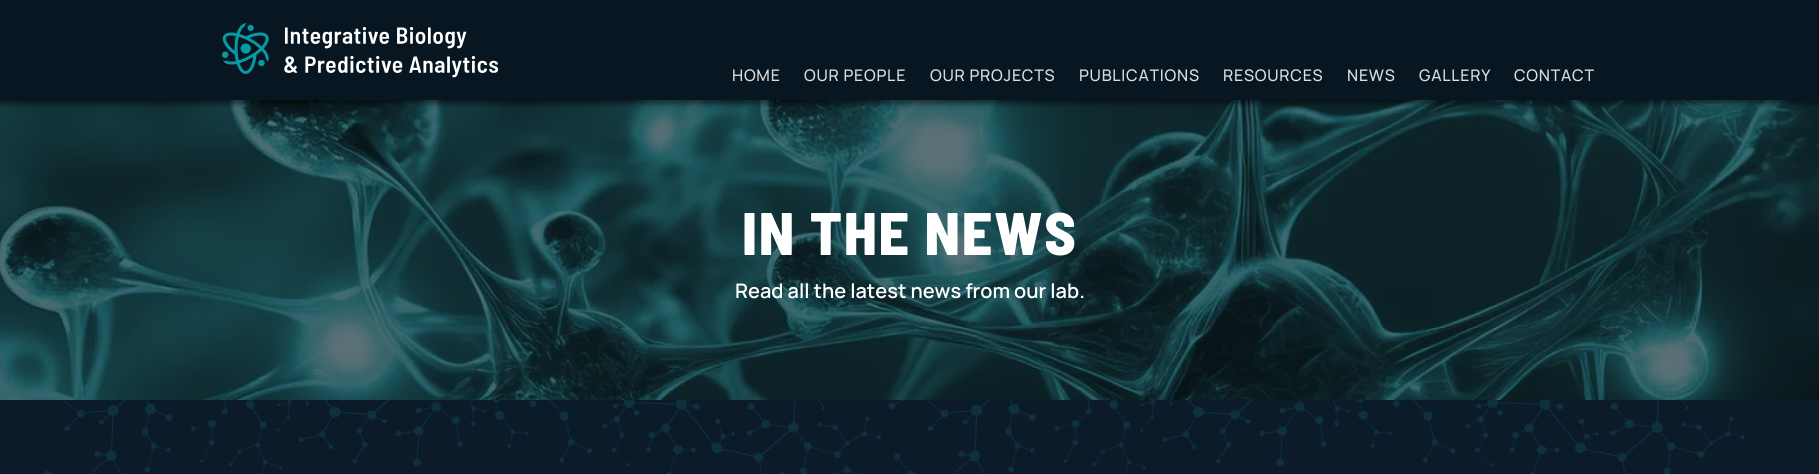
#include <cairo.h>
#include <math.h>
#include <stddef.h>

typedef struct { const char *family; double size; int italic, bold; unsigned color; } style_t;
static cairo_t *ctx;

static void ink(unsigned color) {
    cairo_set_source_rgb(ctx, (color >> 16) / 255.0, (color >> 8 & 255) / 255.0, (color & 255) / 255.0);
}

static void write(double x, double y, const char *s, const style_t *st) {
    cairo_select_font_face(ctx, st->family, st->italic ? CAIRO_FONT_SLANT_ITALIC : CAIRO_FONT_SLANT_NORMAL,
        st->bold ? CAIRO_FONT_WEIGHT_BOLD : CAIRO_FONT_WEIGHT_NORMAL);
    cairo_set_font_size(ctx, st->size);
    ink(st->color);
    cairo_move_to(ctx, x, y);
    cairo_show_text(ctx, s);
}

static void write_spaced(double x, double y, const char *s, double letter, double word) {
    cairo_move_to(ctx, x, y);
    while (*s) {
        char ch[5] = {0};
        int n = 0;
        do ch[n++] = *s++; while ((*s & 0xC0) == 0x80);
        cairo_show_text(ctx, ch);
        cairo_rel_move_to(ctx, letter + word * (*ch == ' '), 0);
    }
}

static void block(double x, double y, double w, double h, unsigned color) {
    ink(color);
    cairo_rectangle(ctx, x, y, w, h);
    cairo_fill(ctx);
}

static void round_path(double x, double y, double w, double h, double r) {
    cairo_new_sub_path(ctx);
    cairo_arc(ctx, x + w - r, y + h - r, r, 0, M_PI / 2);
    cairo_arc(ctx, x + r, y + h - r, r, M_PI / 2, M_PI);
    cairo_arc(ctx, x + r, y + r, r, M_PI, 1.5 * M_PI);
    cairo_arc(ctx, x + w - r, y + r, r, 1.5 * M_PI, 2 * M_PI);
    cairo_close_path(ctx);
}

static void blur_box(double x, double y, double w, double h, double r, double blur, double alpha) {
    cairo_push_group_with_content(ctx, CAIRO_CONTENT_ALPHA);
    cairo_set_operator(ctx, CAIRO_OPERATOR_SOURCE);
    for (int i = 15; i >= -15 && fmin(w, h) + blur * i / 3 > 0; i -= 2) {
        double e = blur * i / 6;
        cairo_set_source_rgba(ctx, 0, 0, 0, alpha * erfc((i - 1) / 8.5) / 2);
        round_path(x - e, y - e, w + 2 * e, h + 2 * e, fmax(0, fmin(r + e + blur * .6, fmin(w, h) / 2 + e)));
        cairo_fill(ctx);
    }
    cairo_pattern_t *soft = cairo_pop_group(ctx);
    cairo_mask(ctx, soft);
    cairo_pattern_destroy(soft);
}

static void paste(const char *path, double x, double y, double w, double h) {
    cairo_surface_t *image = cairo_image_surface_create_from_png(path);
    cairo_save(ctx);
    cairo_set_source_surface(ctx, image, x, y);
    cairo_rectangle(ctx, x, y, w, h);
    cairo_fill(ctx);
    cairo_restore(ctx);
    cairo_surface_destroy(image);
}

static const style_t s1 = {"Manrope SemiBold", 20, 0, 0, 0xffffff};

int main(void) {
    cairo_surface_t *surface = cairo_image_surface_create(CAIRO_FORMAT_RGB24, 1819, 474);
    ctx = cairo_create(surface);
    cairo_font_options_t *options = cairo_font_options_create();
    cairo_font_options_set_hint_metrics(options, CAIRO_HINT_METRICS_OFF);
    cairo_font_options_set_hint_style(options, CAIRO_HINT_STYLE_NONE);
    cairo_set_font_options(ctx, options);
    cairo_set_miter_limit(ctx, 4);
    ink(0x0b1b2a);
    cairo_paint(ctx);
    paste("pic2.png", 0, 100, 1819, 300);
    ink(0x000000);
    blur_box(0, 4, 1819, 100, 0, 2.5, 0.5);
    block(0, 0, 1819, 100, 0x081622);
    paste("pic1.png", 222, 23, 277, 55);
    cairo_select_font_face(ctx, "Manrope Medium", CAIRO_FONT_SLANT_NORMAL, CAIRO_FONT_WEIGHT_NORMAL);
    cairo_set_font_size(ctx, 16);
    ink(0xdddddd);
    write_spaced(732, 81, "HOME", 0.75, 0);
    write_spaced(804, 81, "OUR PEOPLE", 0.75, 0);
    write_spaced(930, 81, "OUR PROJECTS", 0.75, 0);
    write_spaced(1079, 81, "PUBLICATIONS", 0.75, 0);
    write_spaced(1223, 81, "RESOURCES", 0.75, 0);
    write_spaced(1347, 81, "NEWS", 0.75, 0);
    write_spaced(1419, 81, "GALLERY", 0.75, 0);
    write_spaced(1514, 81, "CONTACT", 0.75, 0);
    cairo_select_font_face(ctx, "Barlow Semi Condensed ExtraBold", CAIRO_FONT_SLANT_NORMAL, CAIRO_FONT_WEIGHT_NORMAL);
    cairo_set_font_size(ctx, 60);
    ink(0xffffff);
    write_spaced(742, 255, "IN THE NEWS", 1.75, 0);
    write(735, 298, "Read all the latest news from our lab.", &s1);
    paste("pic3.png", 45, 400, 1700, 74);
    cairo_surface_write_to_png(surface, "screenshot.png");
    cairo_font_options_destroy(options);
    cairo_destroy(ctx);
    cairo_surface_destroy(surface);
    return 0;
}
